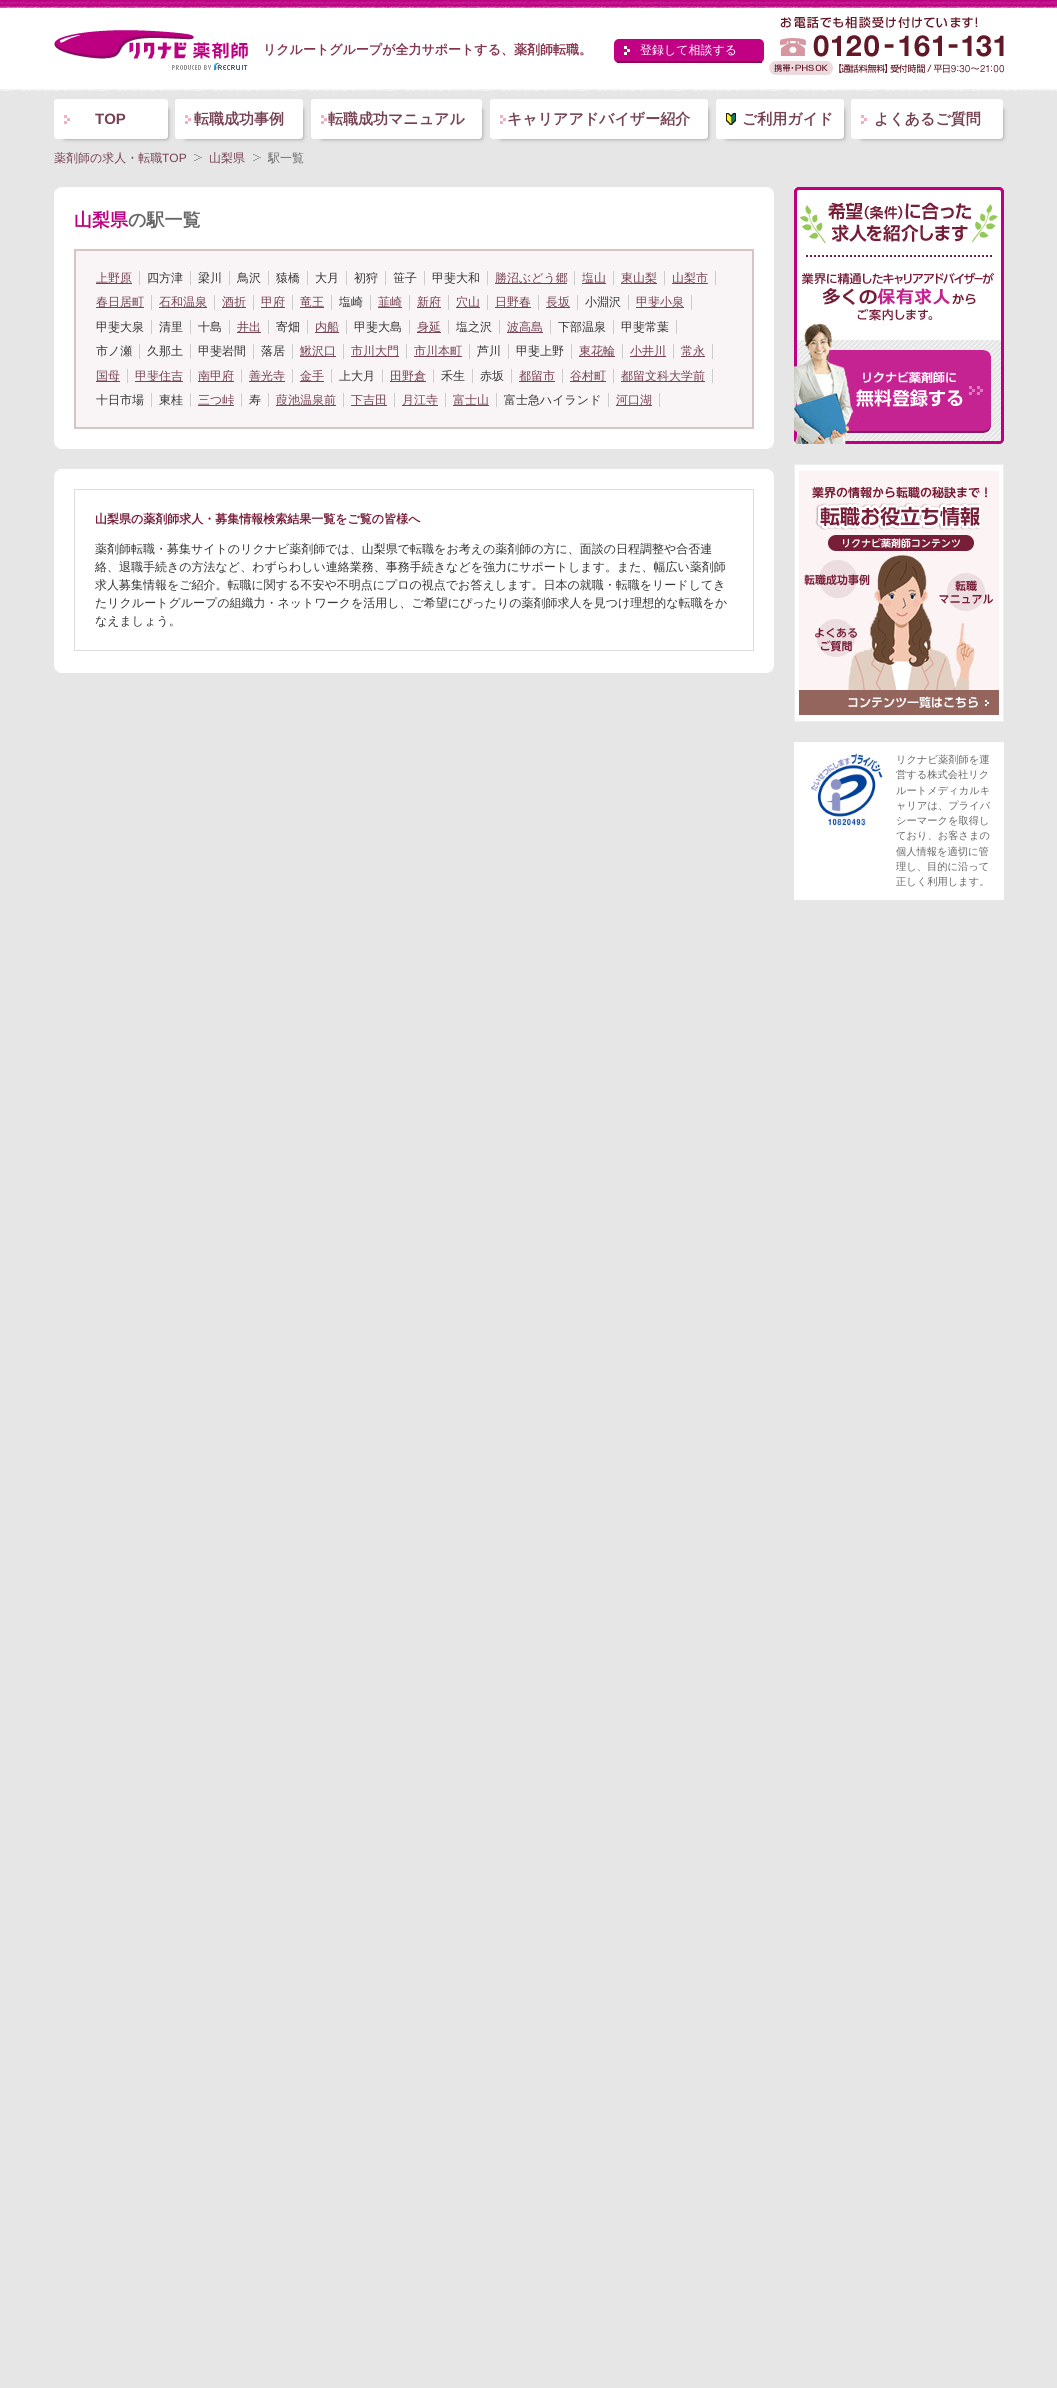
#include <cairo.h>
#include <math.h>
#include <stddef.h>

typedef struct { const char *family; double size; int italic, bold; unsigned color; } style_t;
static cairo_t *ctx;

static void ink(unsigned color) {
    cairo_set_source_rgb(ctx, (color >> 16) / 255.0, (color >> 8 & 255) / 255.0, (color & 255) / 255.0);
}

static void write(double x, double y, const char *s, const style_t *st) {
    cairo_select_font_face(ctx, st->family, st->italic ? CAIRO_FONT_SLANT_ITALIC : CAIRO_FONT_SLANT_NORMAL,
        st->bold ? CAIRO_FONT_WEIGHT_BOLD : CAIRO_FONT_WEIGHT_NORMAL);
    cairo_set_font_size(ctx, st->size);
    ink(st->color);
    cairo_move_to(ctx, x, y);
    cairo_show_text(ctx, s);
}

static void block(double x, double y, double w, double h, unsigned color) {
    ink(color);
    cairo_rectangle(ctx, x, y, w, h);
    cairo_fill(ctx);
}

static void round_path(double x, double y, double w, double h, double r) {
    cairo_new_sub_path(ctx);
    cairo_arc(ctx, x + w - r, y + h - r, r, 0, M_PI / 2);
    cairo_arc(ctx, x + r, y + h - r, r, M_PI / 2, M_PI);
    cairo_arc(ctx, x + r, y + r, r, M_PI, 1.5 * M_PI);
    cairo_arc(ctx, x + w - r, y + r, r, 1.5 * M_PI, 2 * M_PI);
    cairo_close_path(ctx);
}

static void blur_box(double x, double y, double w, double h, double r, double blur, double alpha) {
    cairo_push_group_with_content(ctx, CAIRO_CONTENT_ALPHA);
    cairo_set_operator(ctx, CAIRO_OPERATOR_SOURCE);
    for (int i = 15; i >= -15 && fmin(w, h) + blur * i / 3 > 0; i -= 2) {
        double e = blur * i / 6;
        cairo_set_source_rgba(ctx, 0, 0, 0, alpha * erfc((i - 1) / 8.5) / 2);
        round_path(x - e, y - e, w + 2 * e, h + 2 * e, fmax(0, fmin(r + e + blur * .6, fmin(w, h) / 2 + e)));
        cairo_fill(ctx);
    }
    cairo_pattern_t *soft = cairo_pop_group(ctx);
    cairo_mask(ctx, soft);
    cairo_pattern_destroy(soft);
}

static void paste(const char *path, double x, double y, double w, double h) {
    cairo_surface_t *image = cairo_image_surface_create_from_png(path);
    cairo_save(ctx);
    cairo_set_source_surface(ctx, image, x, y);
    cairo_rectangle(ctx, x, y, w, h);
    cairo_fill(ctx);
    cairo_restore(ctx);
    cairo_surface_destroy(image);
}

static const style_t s1 = {"WenQuanYi Zen Hei", 13, 0, 1, 0x84334c};
static const style_t s2 = {"WenQuanYi Zen Hei Medium", 12, 0, 0, 0xffffff};
static const style_t s3 = {"Liberation Sans", 15, 0, 1, 0x754251};
static const style_t s4 = {"WenQuanYi Zen Hei", 15, 0, 1, 0x754251};
static const style_t s5 = {"WenQuanYi Zen Hei Medium", 12, 0, 0, 0x754251};
static const style_t s6 = {"Liberation Sans", 12, 0, 0, 0x754251};
static const style_t s7 = {"WenQuanYi Zen Hei Medium", 12, 0, 0, 0x666666};
static const style_t s8 = {"WenQuanYi Zen Hei", 18, 0, 1, 0xbd0081};
static const style_t s9 = {"WenQuanYi Zen Hei", 18, 0, 1, 0x666666};
static const style_t s10 = {"WenQuanYi Zen Hei Medium", 12, 0, 0, 0x333333};
static const style_t s11 = {"WenQuanYi Zen Hei", 12, 0, 1, 0x771d37};
static const style_t s12 = {"WenQuanYi Zen Hei Medium", 10.25, 0, 0, 0x666666};

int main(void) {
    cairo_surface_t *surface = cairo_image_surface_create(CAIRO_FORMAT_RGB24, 1057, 2388);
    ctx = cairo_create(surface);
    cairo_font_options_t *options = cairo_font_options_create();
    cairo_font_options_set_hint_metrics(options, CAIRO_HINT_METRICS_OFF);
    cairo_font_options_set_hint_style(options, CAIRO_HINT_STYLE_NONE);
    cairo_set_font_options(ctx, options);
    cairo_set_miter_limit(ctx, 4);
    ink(0xe6e6e6);
    cairo_paint(ctx);
    block(0, 8, 1057, 81, 0xffffff);
    paste("pic1.png", 0, 0, 1057, 8);
    paste("pic2.png", 54, 30, 194, 40);
    write(263, 54, "リクルートグループが全力サポートする、薬剤師転職。", &s1);
    ink(0xc20084);
    round_path(614, 39, 150, 24, 5);
    cairo_fill(ctx);
    paste("pic3.png", 624, 46, 6, 9);
    block(617, 61, 145, 2, 0x88005b);
    write(640, 54, "登録して相談する", &s2);
    paste("pic4.png", 769, 16, 235, 59);
    paste("pic5.png", 0, 89, 1057, 2);
    ink(0x666666);
    blur_box(65, 110, 102, 28, 0, 2.5, 1);
    ink(0xffffff);
    round_path(54, 99, 114, 40, 3);
    cairo_fill(ctx);
    paste("pic6.png", 64, 115, 6, 9);
    write(95, 124, "TOP", &s3);
    ink(0x666666);
    blur_box(186, 110, 116, 28, 0, 2.5, 1);
    ink(0xffffff);
    round_path(175, 99, 128, 40, 3);
    cairo_fill(ctx);
    paste("pic6.png", 185, 115, 6, 9);
    write(194, 124, "転職成功事例", &s4);
    ink(0x666666);
    blur_box(322, 110, 159, 28, 0, 2.5, 1);
    ink(0xffffff);
    round_path(311, 99, 171, 40, 3);
    cairo_fill(ctx);
    paste("pic6.png", 321, 115, 6, 9);
    write(328, 124, "転職成功マニュアル", &s4);
    ink(0x666666);
    blur_box(501, 110, 206, 28, 0, 2.5, 1);
    ink(0xffffff);
    round_path(490, 99, 218, 40, 3);
    cairo_fill(ctx);
    paste("pic6.png", 500, 115, 6, 9);
    write(507, 124, "キャリアアドバイザー紹介", &s4);
    ink(0x666666);
    blur_box(727, 110, 116, 28, 0, 2.5, 1);
    ink(0xffffff);
    round_path(716, 99, 128, 40, 3);
    cairo_fill(ctx);
    paste("pic7.png", 726, 113, 10, 12);
    write(742, 124, "ご利用ガイド", &s4);
    ink(0x666666);
    blur_box(862, 110, 140, 28, 0, 2.5, 1);
    ink(0xffffff);
    round_path(851, 99, 152, 40, 3);
    cairo_fill(ctx);
    paste("pic6.png", 861, 115, 6, 9);
    write(874, 124, "よくあるご質問", &s4);
    write(54, 162, "薬剤師の求人・転職", &s5);
    write(162, 162, "TOP", &s6);
    paste("pic8.png", 194, 154, 8, 7);
    write(209, 162, "山梨県", &s5);
    paste("pic8.png", 253, 154, 8, 7);
    write(268, 162, "駅一覧", &s7);
    paste("pic9.png", 54, 442, 720, 7);
    block(54, 193, 720, 249, 0xffffff);
    paste("pic10.png", 54, 187, 720, 6);
    write(74, 226, "山梨県", &s8);
    write(128, 226, "の駅一覧", &s9);
    ink(0xf9f5f6);
    cairo_rectangle(ctx, 75, 250, 678, 178);
    cairo_fill_preserve(ctx);
    ink(0xd5c6c3);
    cairo_stroke(ctx);
    block(139, 271, 1, 14, 0xcccccc);
    block(96, 283, 36, 1, 0x754251);
    write(96, 282, "上野原", &s5);
    block(190, 271, 1, 14, 0xcccccc);
    write(147, 282, "四方津", &s10);
    block(229, 271, 1, 14, 0xcccccc);
    write(198, 282, "梁川", &s10);
    block(268, 271, 1, 14, 0xcccccc);
    write(237, 282, "鳥沢", &s10);
    block(307, 271, 1, 14, 0xcccccc);
    write(276, 282, "猿橋", &s10);
    block(346, 271, 1, 14, 0xcccccc);
    write(315, 282, "大月", &s10);
    block(385, 271, 1, 14, 0xcccccc);
    write(354, 282, "初狩", &s10);
    block(424, 271, 1, 14, 0xcccccc);
    write(393, 282, "笹子", &s10);
    block(487, 271, 1, 14, 0xcccccc);
    write(432, 282, "甲斐大和", &s10);
    block(574, 271, 1, 14, 0xcccccc);
    block(495, 283, 72, 1, 0x754251);
    write(495, 282, "勝沼ぶどう郷", &s5);
    block(613, 271, 1, 14, 0xcccccc);
    block(582, 283, 24, 1, 0x754251);
    write(582, 282, "塩山", &s5);
    block(664, 271, 1, 14, 0xcccccc);
    block(621, 283, 36, 1, 0x754251);
    write(621, 282, "東山梨", &s5);
    block(715, 271, 1, 14, 0xcccccc);
    block(672, 283, 36, 1, 0x754251);
    write(672, 282, "山梨市", &s5);
    block(151, 295, 1, 15, 0xcccccc);
    block(96, 307, 48, 1, 0x754251);
    write(96, 306, "春日居町", &s5);
    block(214, 295, 1, 15, 0xcccccc);
    block(159, 307, 48, 1, 0x754251);
    write(159, 306, "石和温泉", &s5);
    block(253, 295, 1, 15, 0xcccccc);
    block(222, 307, 24, 1, 0x754251);
    write(222, 306, "酒折", &s5);
    block(292, 295, 1, 15, 0xcccccc);
    block(261, 307, 24, 1, 0x754251);
    write(261, 306, "甲府", &s5);
    block(331, 295, 1, 15, 0xcccccc);
    block(300, 307, 24, 1, 0x754251);
    write(300, 306, "竜王", &s5);
    block(370, 295, 1, 15, 0xcccccc);
    write(339, 306, "塩崎", &s10);
    block(409, 295, 1, 15, 0xcccccc);
    block(378, 307, 24, 1, 0x754251);
    write(378, 306, "韮崎", &s5);
    block(448, 295, 1, 15, 0xcccccc);
    block(417, 307, 24, 1, 0x754251);
    write(417, 306, "新府", &s5);
    block(487, 295, 1, 15, 0xcccccc);
    block(456, 307, 24, 1, 0x754251);
    write(456, 306, "穴山", &s5);
    block(538, 295, 1, 15, 0xcccccc);
    block(495, 307, 36, 1, 0x754251);
    write(495, 306, "日野春", &s5);
    block(577, 295, 1, 15, 0xcccccc);
    block(546, 307, 24, 1, 0x754251);
    write(546, 306, "長坂", &s5);
    block(628, 295, 1, 15, 0xcccccc);
    write(585, 306, "小淵沢", &s10);
    block(691, 295, 1, 15, 0xcccccc);
    block(636, 307, 48, 1, 0x754251);
    write(636, 306, "甲斐小泉", &s5);
    block(151, 320, 1, 14, 0xcccccc);
    write(96, 331, "甲斐大泉", &s10);
    block(190, 320, 1, 14, 0xcccccc);
    write(159, 331, "清里", &s10);
    block(229, 320, 1, 14, 0xcccccc);
    write(198, 331, "十島", &s10);
    block(268, 320, 1, 14, 0xcccccc);
    block(237, 332, 24, 1, 0x754251);
    write(237, 331, "井出", &s5);
    block(307, 320, 1, 14, 0xcccccc);
    write(276, 331, "寄畑", &s10);
    block(346, 320, 1, 14, 0xcccccc);
    block(315, 332, 24, 1, 0x754251);
    write(315, 331, "内船", &s5);
    block(409, 320, 1, 14, 0xcccccc);
    write(354, 331, "甲斐大島", &s10);
    block(448, 320, 1, 14, 0xcccccc);
    block(417, 332, 24, 1, 0x754251);
    write(417, 331, "身延", &s5);
    block(499, 320, 1, 14, 0xcccccc);
    write(456, 331, "塩之沢", &s10);
    block(550, 320, 1, 14, 0xcccccc);
    block(507, 332, 36, 1, 0x754251);
    write(507, 331, "波高島", &s5);
    block(613, 320, 1, 14, 0xcccccc);
    write(558, 331, "下部温泉", &s10);
    block(676, 320, 1, 14, 0xcccccc);
    write(621, 331, "甲斐常葉", &s10);
    block(139, 344, 1, 15, 0xcccccc);
    write(96, 355, "市ノ瀬", &s10);
    block(190, 344, 1, 15, 0xcccccc);
    write(147, 355, "久那土", &s10);
    block(253, 344, 1, 15, 0xcccccc);
    write(198, 355, "甲斐岩間", &s10);
    block(292, 344, 1, 15, 0xcccccc);
    write(261, 355, "落居", &s10);
    block(343, 344, 1, 15, 0xcccccc);
    block(300, 356, 36, 1, 0x754251);
    write(300, 355, "鰍沢口", &s5);
    block(406, 344, 1, 15, 0xcccccc);
    block(351, 356, 48, 1, 0x754251);
    write(351, 355, "市川大門", &s5);
    block(469, 344, 1, 15, 0xcccccc);
    block(414, 356, 48, 1, 0x754251);
    write(414, 355, "市川本町", &s5);
    block(508, 344, 1, 15, 0xcccccc);
    write(477, 355, "芦川", &s10);
    block(571, 344, 1, 15, 0xcccccc);
    write(516, 355, "甲斐上野", &s10);
    block(622, 344, 1, 15, 0xcccccc);
    block(579, 356, 36, 1, 0x754251);
    write(579, 355, "東花輪", &s5);
    block(673, 344, 1, 15, 0xcccccc);
    block(630, 356, 36, 1, 0x754251);
    write(630, 355, "小井川", &s5);
    block(712, 344, 1, 15, 0xcccccc);
    block(681, 356, 24, 1, 0x754251);
    write(681, 355, "常永", &s5);
    block(127, 369, 1, 14, 0xcccccc);
    block(96, 381, 24, 1, 0x754251);
    write(96, 380, "国母", &s5);
    block(190, 369, 1, 14, 0xcccccc);
    block(135, 381, 48, 1, 0x754251);
    write(135, 380, "甲斐住吉", &s5);
    block(241, 369, 1, 14, 0xcccccc);
    block(198, 381, 36, 1, 0x754251);
    write(198, 380, "南甲府", &s5);
    block(292, 369, 1, 14, 0xcccccc);
    block(249, 381, 36, 1, 0x754251);
    write(249, 380, "善光寺", &s5);
    block(331, 369, 1, 14, 0xcccccc);
    block(300, 381, 24, 1, 0x754251);
    write(300, 380, "金手", &s5);
    block(382, 369, 1, 14, 0xcccccc);
    write(339, 380, "上大月", &s10);
    block(433, 369, 1, 14, 0xcccccc);
    block(390, 381, 36, 1, 0x754251);
    write(390, 380, "田野倉", &s5);
    block(472, 369, 1, 14, 0xcccccc);
    write(441, 380, "禾生", &s10);
    block(511, 369, 1, 14, 0xcccccc);
    write(480, 380, "赤坂", &s10);
    block(562, 369, 1, 14, 0xcccccc);
    block(519, 381, 36, 1, 0x754251);
    write(519, 380, "都留市", &s5);
    block(613, 369, 1, 14, 0xcccccc);
    block(570, 381, 36, 1, 0x754251);
    write(570, 380, "谷村町", &s5);
    block(712, 369, 1, 14, 0xcccccc);
    block(621, 381, 84, 1, 0x754251);
    write(621, 380, "都留文科大学前", &s5);
    block(151, 393, 1, 14, 0xcccccc);
    write(96, 404, "十日市場", &s10);
    block(190, 393, 1, 14, 0xcccccc);
    write(159, 404, "東桂", &s10);
    block(241, 393, 1, 14, 0xcccccc);
    block(198, 405, 36, 1, 0x754251);
    write(198, 404, "三つ峠", &s5);
    block(268, 393, 1, 14, 0xcccccc);
    write(249, 404, "寿", &s10);
    block(343, 393, 1, 14, 0xcccccc);
    block(276, 405, 60, 1, 0x754251);
    write(276, 404, "葭池温泉前", &s5);
    block(394, 393, 1, 14, 0xcccccc);
    block(351, 405, 36, 1, 0x754251);
    write(351, 404, "下吉田", &s5);
    block(445, 393, 1, 14, 0xcccccc);
    block(402, 405, 36, 1, 0x754251);
    write(402, 404, "月江寺", &s5);
    block(496, 393, 1, 14, 0xcccccc);
    block(453, 405, 36, 1, 0x754251);
    write(453, 404, "富士山", &s5);
    block(608, 393, 1, 14, 0xcccccc);
    write(504, 404, "富士急ハイランド", &s10);
    block(659, 393, 1, 14, 0xcccccc);
    block(616, 405, 36, 1, 0x754251);
    write(616, 404, "河口湖", &s5);
    paste("pic9.png", 54, 666, 720, 7);
    block(54, 475, 720, 191, 0xffffff);
    paste("pic10.png", 54, 469, 720, 6);
    cairo_rectangle(ctx, 74.5, 489.5, 679, 161);
    ink(0xdddddd);
    cairo_set_line_width(ctx, 1);
    cairo_stroke(ctx);
    write(95, 523, "山梨県の薬剤師求人・募集情報検索結果一覧をご覧の皆様へ", &s11);
    write(95, 553, "薬剤師転職・募集サイトのリクナビ薬剤師では、山梨県で転職をお考えの薬剤師の方に、面談の日程調整や合否連", &s10);
    write(95, 571, "絡、退職手続きの方法など、わずらわしい連絡業務、事務手続きなどを強力にサポートします。また、幅広い薬剤師", &s10);
    write(95, 589, "求人募集情報をご紹介。転職に関する不安や不明点にプロの視点でお答えします。日本の就職・転職をリードしてき", &s10);
    write(95, 607, "たリクルートグループの組織力・ネットワークを活用し、ご希望にぴったりの薬剤師求人を見つけ理想的な転職をか", &s10);
    write(95, 625, "なえましょう。", &s10);
    paste("pic11.png", 794, 187, 210, 257);
    paste("pic12.png", 794, 464, 210, 258);
    block(794, 742, 210, 158, 0xffffff);
    paste("pic13.png", 810, 753, 73, 73);
    write(896, 763, "リクナビ薬剤師を運", &s12);
    write(896, 778, "営する株式会社リク", &s12);
    write(896, 794, "ルートメディカルキ", &s12);
    write(896, 809, "ャリアは、プライバ", &s12);
    write(896, 824, "シーマークを取得し", &s12);
    write(896, 839, "ており、お客さまの", &s12);
    write(896, 855, "個人情報を適切に管", &s12);
    cairo_save(ctx);
    cairo_rectangle(ctx, 896, 752, 98, 138);
    cairo_clip(ctx);
    write(896, 870, "理し、目的に沿って", &s12);
    cairo_restore(ctx);
    write(896, 885, "正しく利用します。", &s12);
    cairo_surface_write_to_png(surface, "screenshot.png");
    cairo_font_options_destroy(options);
    cairo_destroy(ctx);
    cairo_surface_destroy(surface);
    return 0;
}
